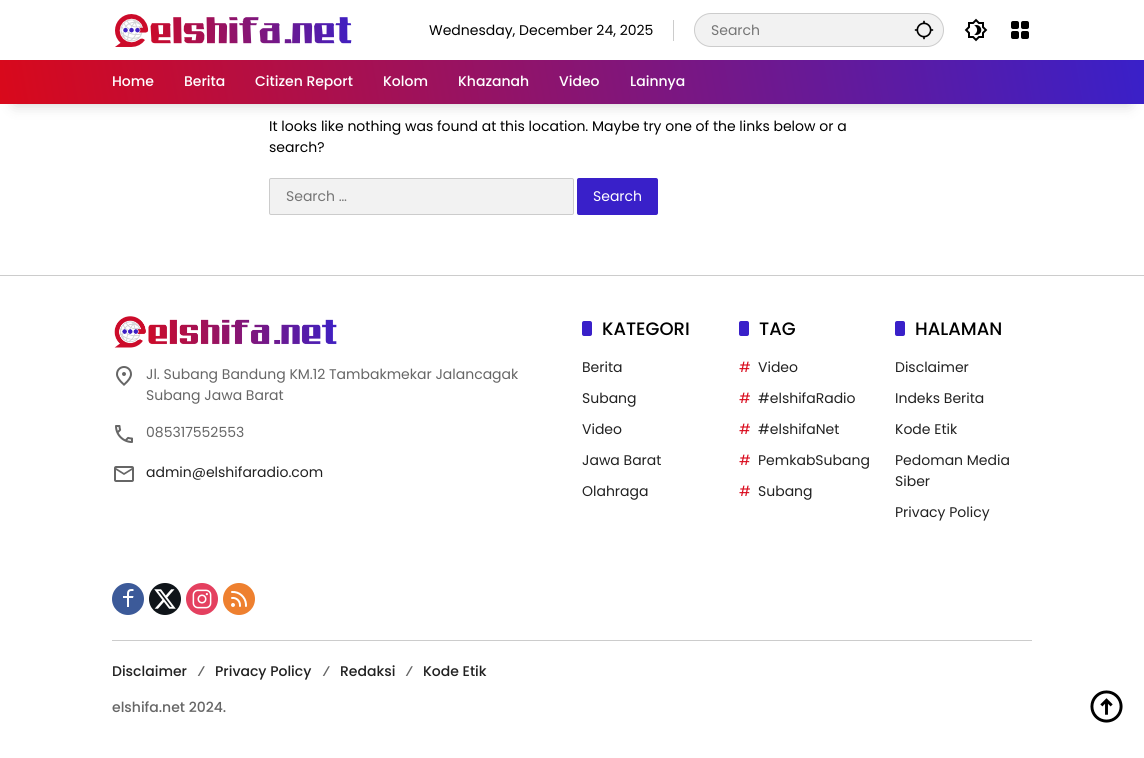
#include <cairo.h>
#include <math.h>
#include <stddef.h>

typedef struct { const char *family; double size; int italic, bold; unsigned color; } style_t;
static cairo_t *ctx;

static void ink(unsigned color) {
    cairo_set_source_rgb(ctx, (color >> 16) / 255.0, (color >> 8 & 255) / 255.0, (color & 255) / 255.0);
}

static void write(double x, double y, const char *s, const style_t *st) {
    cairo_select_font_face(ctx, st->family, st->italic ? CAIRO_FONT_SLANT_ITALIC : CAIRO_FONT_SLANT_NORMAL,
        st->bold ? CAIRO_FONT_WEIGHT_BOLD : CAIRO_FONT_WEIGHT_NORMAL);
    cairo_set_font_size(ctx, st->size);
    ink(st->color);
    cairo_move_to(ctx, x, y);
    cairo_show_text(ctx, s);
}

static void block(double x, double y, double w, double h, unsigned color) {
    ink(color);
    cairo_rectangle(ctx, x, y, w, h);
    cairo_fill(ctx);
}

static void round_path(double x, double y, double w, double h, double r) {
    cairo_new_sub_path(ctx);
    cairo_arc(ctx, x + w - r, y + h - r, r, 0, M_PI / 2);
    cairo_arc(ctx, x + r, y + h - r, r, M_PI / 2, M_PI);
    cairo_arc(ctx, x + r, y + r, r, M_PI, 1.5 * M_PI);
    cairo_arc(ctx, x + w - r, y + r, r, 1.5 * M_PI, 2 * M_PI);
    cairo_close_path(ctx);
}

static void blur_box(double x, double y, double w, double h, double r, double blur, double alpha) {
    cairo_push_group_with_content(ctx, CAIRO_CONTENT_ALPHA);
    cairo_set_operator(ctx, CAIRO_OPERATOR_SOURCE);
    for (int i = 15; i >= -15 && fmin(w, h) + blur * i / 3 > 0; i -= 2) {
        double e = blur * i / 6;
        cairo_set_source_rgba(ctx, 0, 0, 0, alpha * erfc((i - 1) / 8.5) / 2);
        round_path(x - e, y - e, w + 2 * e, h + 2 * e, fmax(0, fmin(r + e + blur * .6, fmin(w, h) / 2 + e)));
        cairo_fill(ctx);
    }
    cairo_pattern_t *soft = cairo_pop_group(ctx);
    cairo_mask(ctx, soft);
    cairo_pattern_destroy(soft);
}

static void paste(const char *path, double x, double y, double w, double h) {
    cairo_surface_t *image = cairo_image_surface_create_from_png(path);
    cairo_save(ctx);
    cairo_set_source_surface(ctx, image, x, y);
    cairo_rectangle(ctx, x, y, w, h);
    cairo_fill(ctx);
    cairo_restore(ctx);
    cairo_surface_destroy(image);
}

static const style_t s1 = {"Poppins", 14, 0, 0, 0x000000};
static const style_t s2 = {"Poppins", 14, 0, 0, 0x757575};
static const style_t s3 = {"Poppins Medium", 14, 0, 0, 0xffffff};
static const style_t s4 = {"Poppins", 14, 0, 0, 0xffffff};
static const style_t s5 = {"Poppins", 14, 0, 0, 0x666666};
static const style_t s6 = {"Poppins", 14, 0, 0, 0x212121};
static const style_t s7 = {"Poppins Medium", 18, 0, 0, 0x000000};
static const style_t s8 = {"Poppins", 14, 0, 0, 0xd9091b};
static const style_t s9 = {"Poppins Medium", 14, 0, 0, 0x212121};
static const style_t s10 = {"Poppins Medium", 14, 0, 0, 0x666666};

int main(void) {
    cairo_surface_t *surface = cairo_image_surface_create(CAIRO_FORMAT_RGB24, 1144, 758);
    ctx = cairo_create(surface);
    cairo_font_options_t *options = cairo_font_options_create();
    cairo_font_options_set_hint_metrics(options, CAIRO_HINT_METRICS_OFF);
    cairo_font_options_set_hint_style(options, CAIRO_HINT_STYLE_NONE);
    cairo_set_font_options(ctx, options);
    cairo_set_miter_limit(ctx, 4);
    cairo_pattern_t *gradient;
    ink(0xffffff);
    cairo_paint(ctx);
    paste("pic1.png", 115, 14, 237, 33);
    block(673, 20, 1, 21, 0xcccccc);
    write(429, 35, "Wednesday, December 24, 2025", &s1);
    ink(0xf2f2f2);
    round_path(694.5, 13.5, 249, 33, 16.5);
    cairo_fill_preserve(ctx);
    ink(0xcccccc);
    cairo_set_line_width(ctx, 1);
    cairo_stroke(ctx);
    write(711, 35, "Search", &s2);
    paste("pic2.png", 914, 20, 20, 20);
    paste("pic3.png", 964, 18, 24, 24);
    paste("pic4.png", 1011, 21, 18, 18);
    ink(0x000000);
    blur_box(15, 90, 1114, 14, 0, 7.5, 0.2);
    gradient = cairo_pattern_create_linear(13, 180, 1131, -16);
    cairo_pattern_add_color_stop_rgba(gradient, 0, 0.851, 0.035, 0.106, 1);
    cairo_pattern_add_color_stop_rgba(gradient, 1, 0.224, 0.125, 0.788, 1);
    cairo_set_source(ctx, gradient);
    cairo_pattern_destroy(gradient);
    cairo_rectangle(ctx, 0, 60, 1144, 44);
    cairo_fill(ctx);
    write(112, 86, "Home", &s3);
    write(184, 86, "Berita", &s3);
    write(255, 86, "Citizen Report", &s3);
    write(383, 86, "Kolom", &s3);
    write(458, 86, "Khazanah", &s3);
    write(559, 86, "Video", &s3);
    write(630, 86, "Lainnya", &s3);
    write(269, 131, "It looks like nothing was found at this location. Maybe try one of the links below or a", &s1);
    write(269, 152, "search?", &s1);
    ink(0xf2f2f2);
    round_path(269.5, 178.5, 304, 36, 1.5);
    cairo_fill_preserve(ctx);
    ink(0xcccccc);
    cairo_stroke(ctx);
    write(286, 201, "Search …", &s2);
    ink(0x3920c9);
    round_path(577, 178, 81, 37, 2);
    cairo_fill(ctx);
    write(593, 201, "Search", &s4);
    block(0, 275, 1144, 1, 0xcccccc);
    paste("pic5.png", 114, 316, 223, 32);
    paste("pic6.png", 116, 366, 16, 20);
    write(146, 379, "Jl. Subang Bandung KM.12 Tambakmekar Jalancagak", &s5);
    write(146, 400, "Subang Jawa Barat", &s5);
    paste("pic7.png", 115, 425, 18, 18);
    write(146, 437, "085317552553", &s5);
    paste("pic8.png", 114, 466, 20, 16);
    write(146, 477, "admin@elshifaradio.com", &s6);
    ink(0x3920c9);
    round_path(582, 321, 10, 15, 2);
    cairo_fill(ctx);
    write(602, 335, "KATEGORI", &s7);
    write(582, 372, "Berita", &s6);
    write(582, 403, "Subang", &s6);
    write(582, 434, "Video", &s6);
    write(582, 465, "Jawa Barat", &s6);
    write(582, 496, "Olahraga", &s6);
    ink(0x3920c9);
    round_path(739, 321, 10, 15, 2);
    cairo_fill(ctx);
    write(759, 335, "TAG", &s7);
    write(739, 372, "#", &s8);
    write(758, 372, "Video", &s6);
    write(739, 403, "#", &s8);
    write(758, 403, "#elshifaRadio", &s6);
    write(739, 434, "#", &s8);
    write(758, 434, "#elshifaNet", &s6);
    write(739, 465, "#", &s8);
    write(758, 465, "PemkabSubang", &s6);
    write(739, 496, "#", &s8);
    write(758, 496, "Subang", &s6);
    ink(0x3920c9);
    round_path(895, 321, 10, 15, 2);
    cairo_fill(ctx);
    write(915, 335, "HALAMAN", &s7);
    write(895, 372, "Disclaimer", &s6);
    write(895, 403, "Indeks Berita", &s6);
    write(895, 434, "Kode Etik", &s6);
    write(895, 465, "Pedoman Media", &s6);
    write(895, 486, "Siber", &s6);
    write(895, 517, "Privacy Policy", &s6);
    block(112, 640, 920, 1, 0xcccccc);
    ink(0x3c5a99);
    cairo_new_path(ctx);
    cairo_arc(ctx, 128, 599, 16, 0, 2 * M_PI);
    cairo_fill(ctx);
    paste("pic9.png", 123, 589, 11, 18);
    ink(0x0f1419);
    cairo_arc(ctx, 165, 599, 16, 0, 2 * M_PI);
    cairo_fill(ctx);
    paste("pic10.png", 154, 589, 22, 20);
    ink(0xe4405f);
    cairo_arc(ctx, 202, 599, 16, 0, 2 * M_PI);
    cairo_fill(ctx);
    paste("pic11.png", 192, 589, 20, 20);
    ink(0xee802f);
    cairo_arc(ctx, 239, 599, 16, 0, 2 * M_PI);
    cairo_fill(ctx);
    paste("pic12.png", 231, 591, 16, 16);
    write(112, 676, "Disclaimer", &s9);
    write(197, 676, "⁄", &s10);
    write(215, 676, "Privacy Policy", &s9);
    write(322, 676, "⁄", &s10);
    write(340, 676, "Redaksi", &s9);
    write(405, 676, "⁄", &s10);
    write(423, 676, "Kode Etik", &s9);
    write(112, 712, "elshifa.net 2024.", &s10);
    paste("pic13.png", 1090, 690, 33, 33);
    cairo_surface_write_to_png(surface, "screenshot.png");
    cairo_font_options_destroy(options);
    cairo_destroy(ctx);
    cairo_surface_destroy(surface);
    return 0;
}
